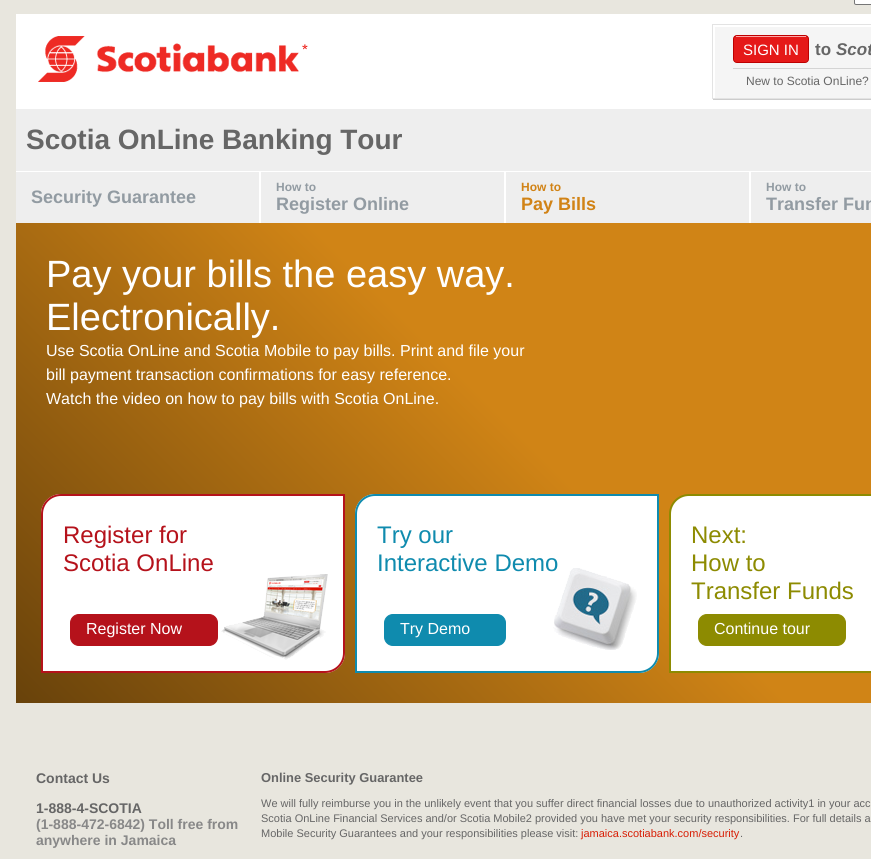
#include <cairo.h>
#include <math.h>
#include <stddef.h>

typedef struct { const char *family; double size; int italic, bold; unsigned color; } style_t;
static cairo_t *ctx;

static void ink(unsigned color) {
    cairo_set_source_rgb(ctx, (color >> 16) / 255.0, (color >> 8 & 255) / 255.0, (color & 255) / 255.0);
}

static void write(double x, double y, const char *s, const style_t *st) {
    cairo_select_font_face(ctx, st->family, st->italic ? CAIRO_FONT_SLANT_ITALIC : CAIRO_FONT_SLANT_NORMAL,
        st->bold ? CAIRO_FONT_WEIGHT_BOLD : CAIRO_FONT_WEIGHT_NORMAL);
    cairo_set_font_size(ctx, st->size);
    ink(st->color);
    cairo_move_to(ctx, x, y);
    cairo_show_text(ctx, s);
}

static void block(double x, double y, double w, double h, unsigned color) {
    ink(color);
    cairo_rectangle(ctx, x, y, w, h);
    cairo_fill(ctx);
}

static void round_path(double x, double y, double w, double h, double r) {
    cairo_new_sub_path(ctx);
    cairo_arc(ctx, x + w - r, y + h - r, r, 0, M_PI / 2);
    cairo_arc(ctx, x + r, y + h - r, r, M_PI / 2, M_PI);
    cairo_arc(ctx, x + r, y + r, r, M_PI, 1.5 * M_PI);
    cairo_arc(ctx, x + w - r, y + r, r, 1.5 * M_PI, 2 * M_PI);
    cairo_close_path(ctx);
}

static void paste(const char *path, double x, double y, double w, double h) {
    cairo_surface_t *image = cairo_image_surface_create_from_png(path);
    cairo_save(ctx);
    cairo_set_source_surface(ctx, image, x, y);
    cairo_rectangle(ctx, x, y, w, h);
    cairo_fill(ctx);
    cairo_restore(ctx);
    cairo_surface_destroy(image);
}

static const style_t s1 = {"Liberation Sans", 15, 0, 0, 0xffffff};
static const style_t s2 = {"Liberation Sans", 17, 0, 1, 0x666666};
static const style_t s3 = {"Liberation Sans", 17, 1, 1, 0x666666};
static const style_t s4 = {"Liberation Sans", 12, 0, 0, 0x666666};
static const style_t s5 = {"Liberation Sans", 28, 0, 1, 0x666666};
static const style_t s6 = {"Liberation Sans", 18, 0, 1, 0x929ba2};
static const style_t s7 = {"Liberation Sans", 12, 0, 1, 0x929ba2};
static const style_t s8 = {"Liberation Sans", 12, 0, 1, 0xd18316};
static const style_t s9 = {"Liberation Sans", 18, 0, 1, 0xd18316};
static const style_t s10 = {"Liberation Sans", 38, 0, 0, 0xffffff};
static const style_t s11 = {"Liberation Sans", 16, 0, 0, 0xffffff};
static const style_t s12 = {"Liberation Sans", 24, 0, 0, 0xb5121b};
static const style_t s13 = {"Liberation Sans", 24, 0, 0, 0x0f8bae};
static const style_t s14 = {"Liberation Sans", 24, 0, 0, 0x8d8b01};
static const style_t s15 = {"Liberation Sans", 14, 0, 1, 0x666666};
static const style_t s16 = {"Liberation Sans", 14, 0, 1, 0x888888};
static const style_t s17 = {"Liberation Sans", 12.9, 0, 1, 0x666666};
static const style_t s18 = {"Liberation Sans", 11, 0, 0, 0x666666};
static const style_t s19 = {"Liberation Sans", 11, 0, 0, 0xd81e05};

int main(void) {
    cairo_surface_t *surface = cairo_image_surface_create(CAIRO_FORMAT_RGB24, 871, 859);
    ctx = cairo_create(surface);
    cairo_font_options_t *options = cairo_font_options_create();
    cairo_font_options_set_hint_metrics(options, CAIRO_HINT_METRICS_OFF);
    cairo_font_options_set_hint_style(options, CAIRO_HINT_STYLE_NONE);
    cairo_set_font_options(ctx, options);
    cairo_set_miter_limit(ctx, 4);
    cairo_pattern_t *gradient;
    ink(0xe8e6de);
    cairo_paint(ctx);
    block(16, 14, 855, 95, 0xffffff);
    round_path(854.5, -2.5, 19, 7, 1.5);
    cairo_fill_preserve(ctx);
    ink(0x767676);
    cairo_set_line_width(ctx, 1);
    cairo_stroke(ctx);
    paste("pic1.png", 38, 36, 270, 46);
    ink(0xcccccc);
    cairo_new_path(ctx);
    cairo_move_to(ctx, 713, 99);
    cairo_line_to(ctx, 713, 100);
    cairo_line_to(ctx, 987, 100);
    cairo_line_to(ctx, 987, 25);
    cairo_line_to(ctx, 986, 25);
    cairo_line_to(ctx, 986, 99);
    cairo_close_path(ctx);
    cairo_fill(ctx);
    block(715, 27, 156, 71, 0xf5f5f5);
    cairo_rectangle(ctx, 712.5, 24.5, 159, 74);
    ink(0xe3e3e3);
    cairo_stroke(ctx);
    ink(0xe51918);
    round_path(733.5, 35.5, 75, 27, 3.5);
    cairo_fill_preserve(ctx);
    ink(0xbd0000);
    cairo_stroke(ctx);
    ink(0xe51918);
    round_path(734, 36, 74, 26, 4);
    cairo_fill(ctx);
    block(736, 36, 70, 1, 0xffa5a5);
    write(743, 55, "SIGN IN", &s1);
    write(815, 55, "to", &s2);
    write(836, 55, "Scot", &s3);
    block(733, 68, 138, 1, 0xd4d4d4);
    write(746, 85, "New to Scotia OnLine?", &s4);
    block(16, 109, 855, 62, 0xeeeeee);
    block(16, 171, 855, 1, 0xffffff);
    write(26, 149, "Scotia OnLine Banking Tour", &s5);
    block(16, 172, 855, 51, 0xeeeeee);
    write(31, 203, "Security Guarantee", &s6);
    block(259, 172, 2, 51, 0xffffff);
    write(276, 191, "How to", &s7);
    write(276, 210, "Register Online", &s6);
    block(504, 172, 2, 51, 0xffffff);
    write(521, 191, "How to", &s8);
    write(521, 210, "Pay Bills", &s9);
    block(749, 172, 2, 51, 0xffffff);
    write(766, 191, "How to", &s7);
    write(766, 210, "Transfer Fun", &s6);
    gradient = cairo_pattern_create_linear(141, 828, 871, 98);
    cairo_pattern_add_color_stop_rgba(gradient, 0, 0.408, 0.259, 0.043, 1);
    cairo_pattern_add_color_stop_rgba(gradient, 0.53, 0.816, 0.518, 0.086, 1);
    cairo_set_source(ctx, gradient);
    cairo_pattern_destroy(gradient);
    cairo_rectangle(ctx, 16, 223, 855, 480);
    cairo_fill(ctx);
    write(46, 287, "Pay your bills the easy way.", &s10);
    write(46, 330, "Electronically.", &s10);
    write(46, 356, "Use Scotia OnLine and Scotia Mobile to pay bills. Print and file your", &s11);
    write(46, 380, "bill payment transaction confirmations for easy reference.", &s11);
    write(46, 404, "Watch the video on how to pay bills with Scotia OnLine.", &s11);
    cairo_new_path(ctx);
    cairo_move_to(ctx, 61, 494);
    cairo_line_to(ctx, 345, 494);
    cairo_line_to(ctx, 345, 653);
    cairo_curve_to(ctx, 345, 664, 336, 673, 325, 673);
    cairo_line_to(ctx, 41, 673);
    cairo_line_to(ctx, 41, 514);
    cairo_curve_to(ctx, 41, 503, 50, 494, 61, 494);
    cairo_close_path(ctx);
    cairo_fill(ctx);
    paste("pic2.png", 221, 574, 107, 86);
    cairo_new_path(ctx);
    cairo_move_to(ctx, 61, 495);
    cairo_line_to(ctx, 344, 495);
    cairo_line_to(ctx, 344, 653);
    cairo_curve_to(ctx, 344, 663.5, 335.5, 672, 325, 672);
    cairo_line_to(ctx, 42, 672);
    cairo_line_to(ctx, 42, 514);
    cairo_curve_to(ctx, 42, 503.5, 50.5, 495, 61, 495);
    cairo_close_path(ctx);
    ink(0xb5121b);
    cairo_set_line_width(ctx, 2);
    cairo_stroke(ctx);
    write(63, 543, "Register for", &s12);
    write(63, 571, "Scotia OnLine", &s12);
    round_path(70.5, 614.5, 147, 31, 8.5);
    cairo_fill_preserve(ctx);
    cairo_set_line_width(ctx, 1);
    cairo_stroke(ctx);
    write(86, 634, "Register Now", &s11);
    cairo_new_path(ctx);
    cairo_move_to(ctx, 375, 494);
    cairo_line_to(ctx, 659, 494);
    cairo_line_to(ctx, 659, 653);
    cairo_curve_to(ctx, 659, 664, 650, 673, 639, 673);
    cairo_line_to(ctx, 355, 673);
    cairo_line_to(ctx, 355, 514);
    cairo_curve_to(ctx, 355, 503, 364, 494, 375, 494);
    cairo_close_path(ctx);
    cairo_fill(ctx);
    paste("pic3.png", 553, 568, 84, 82);
    cairo_new_path(ctx);
    cairo_move_to(ctx, 375, 495);
    cairo_line_to(ctx, 658, 495);
    cairo_line_to(ctx, 658, 653);
    cairo_curve_to(ctx, 658, 663.5, 649.5, 672, 639, 672);
    cairo_line_to(ctx, 356, 672);
    cairo_line_to(ctx, 356, 514);
    cairo_curve_to(ctx, 356, 503.5, 364.5, 495, 375, 495);
    cairo_close_path(ctx);
    ink(0x0f8bae);
    cairo_set_line_width(ctx, 2);
    cairo_stroke(ctx);
    write(377, 543, "Try our", &s13);
    write(377, 571, "Interactive Demo", &s13);
    round_path(384.5, 614.5, 121, 31, 8.5);
    cairo_fill_preserve(ctx);
    cairo_set_line_width(ctx, 1);
    cairo_stroke(ctx);
    write(400, 634, "Try Demo", &s11);
    cairo_new_path(ctx);
    cairo_move_to(ctx, 689, 495);
    cairo_line_to(ctx, 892, 495);
    cairo_line_to(ctx, 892, 653);
    cairo_curve_to(ctx, 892, 663.5, 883.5, 672, 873, 672);
    cairo_line_to(ctx, 670, 672);
    cairo_line_to(ctx, 670, 514);
    cairo_curve_to(ctx, 670, 503.5, 678.5, 495, 689, 495);
    cairo_close_path(ctx);
    cairo_fill_preserve(ctx);
    ink(0x8d8b01);
    cairo_set_line_width(ctx, 2);
    cairo_stroke(ctx);
    write(691, 543, "Next:", &s14);
    write(691, 571, "How to", &s14);
    write(691, 599, "Transfer Funds", &s14);
    round_path(698.5, 614.5, 147, 31, 8.5);
    cairo_fill_preserve(ctx);
    cairo_set_line_width(ctx, 1);
    cairo_stroke(ctx);
    write(714, 634, "Continue tour", &s11);
    write(36, 783, "Contact Us", &s15);
    write(36, 813, "1-888-4-SCOTIA", &s15);
    write(36, 829, "(1-888-472-6842) Toll free from", &s16);
    write(36, 845, "anywhere in Jamaica", &s16);
    write(261, 782, "Online Security Guarantee", &s17);
    write(261, 807, "We will fully reimburse you in the unlikely event that you suffer direct financial losses due to unauthorized activity1 in your acc", &s18);
    write(261, 822, "Scotia OnLine Financial Services and/or Scotia Mobile2 provided you have met your security responsibilities. For full details a", &s18);
    write(261, 837, "Mobile Security Guarantees and your responsibilities please visit:", &s18);
    write(581, 837, "jamaica.scotiabank.com/security", &s19);
    write(740, 837, ".", &s18);
    cairo_surface_write_to_png(surface, "screenshot.png");
    cairo_font_options_destroy(options);
    cairo_destroy(ctx);
    cairo_surface_destroy(surface);
    return 0;
}
